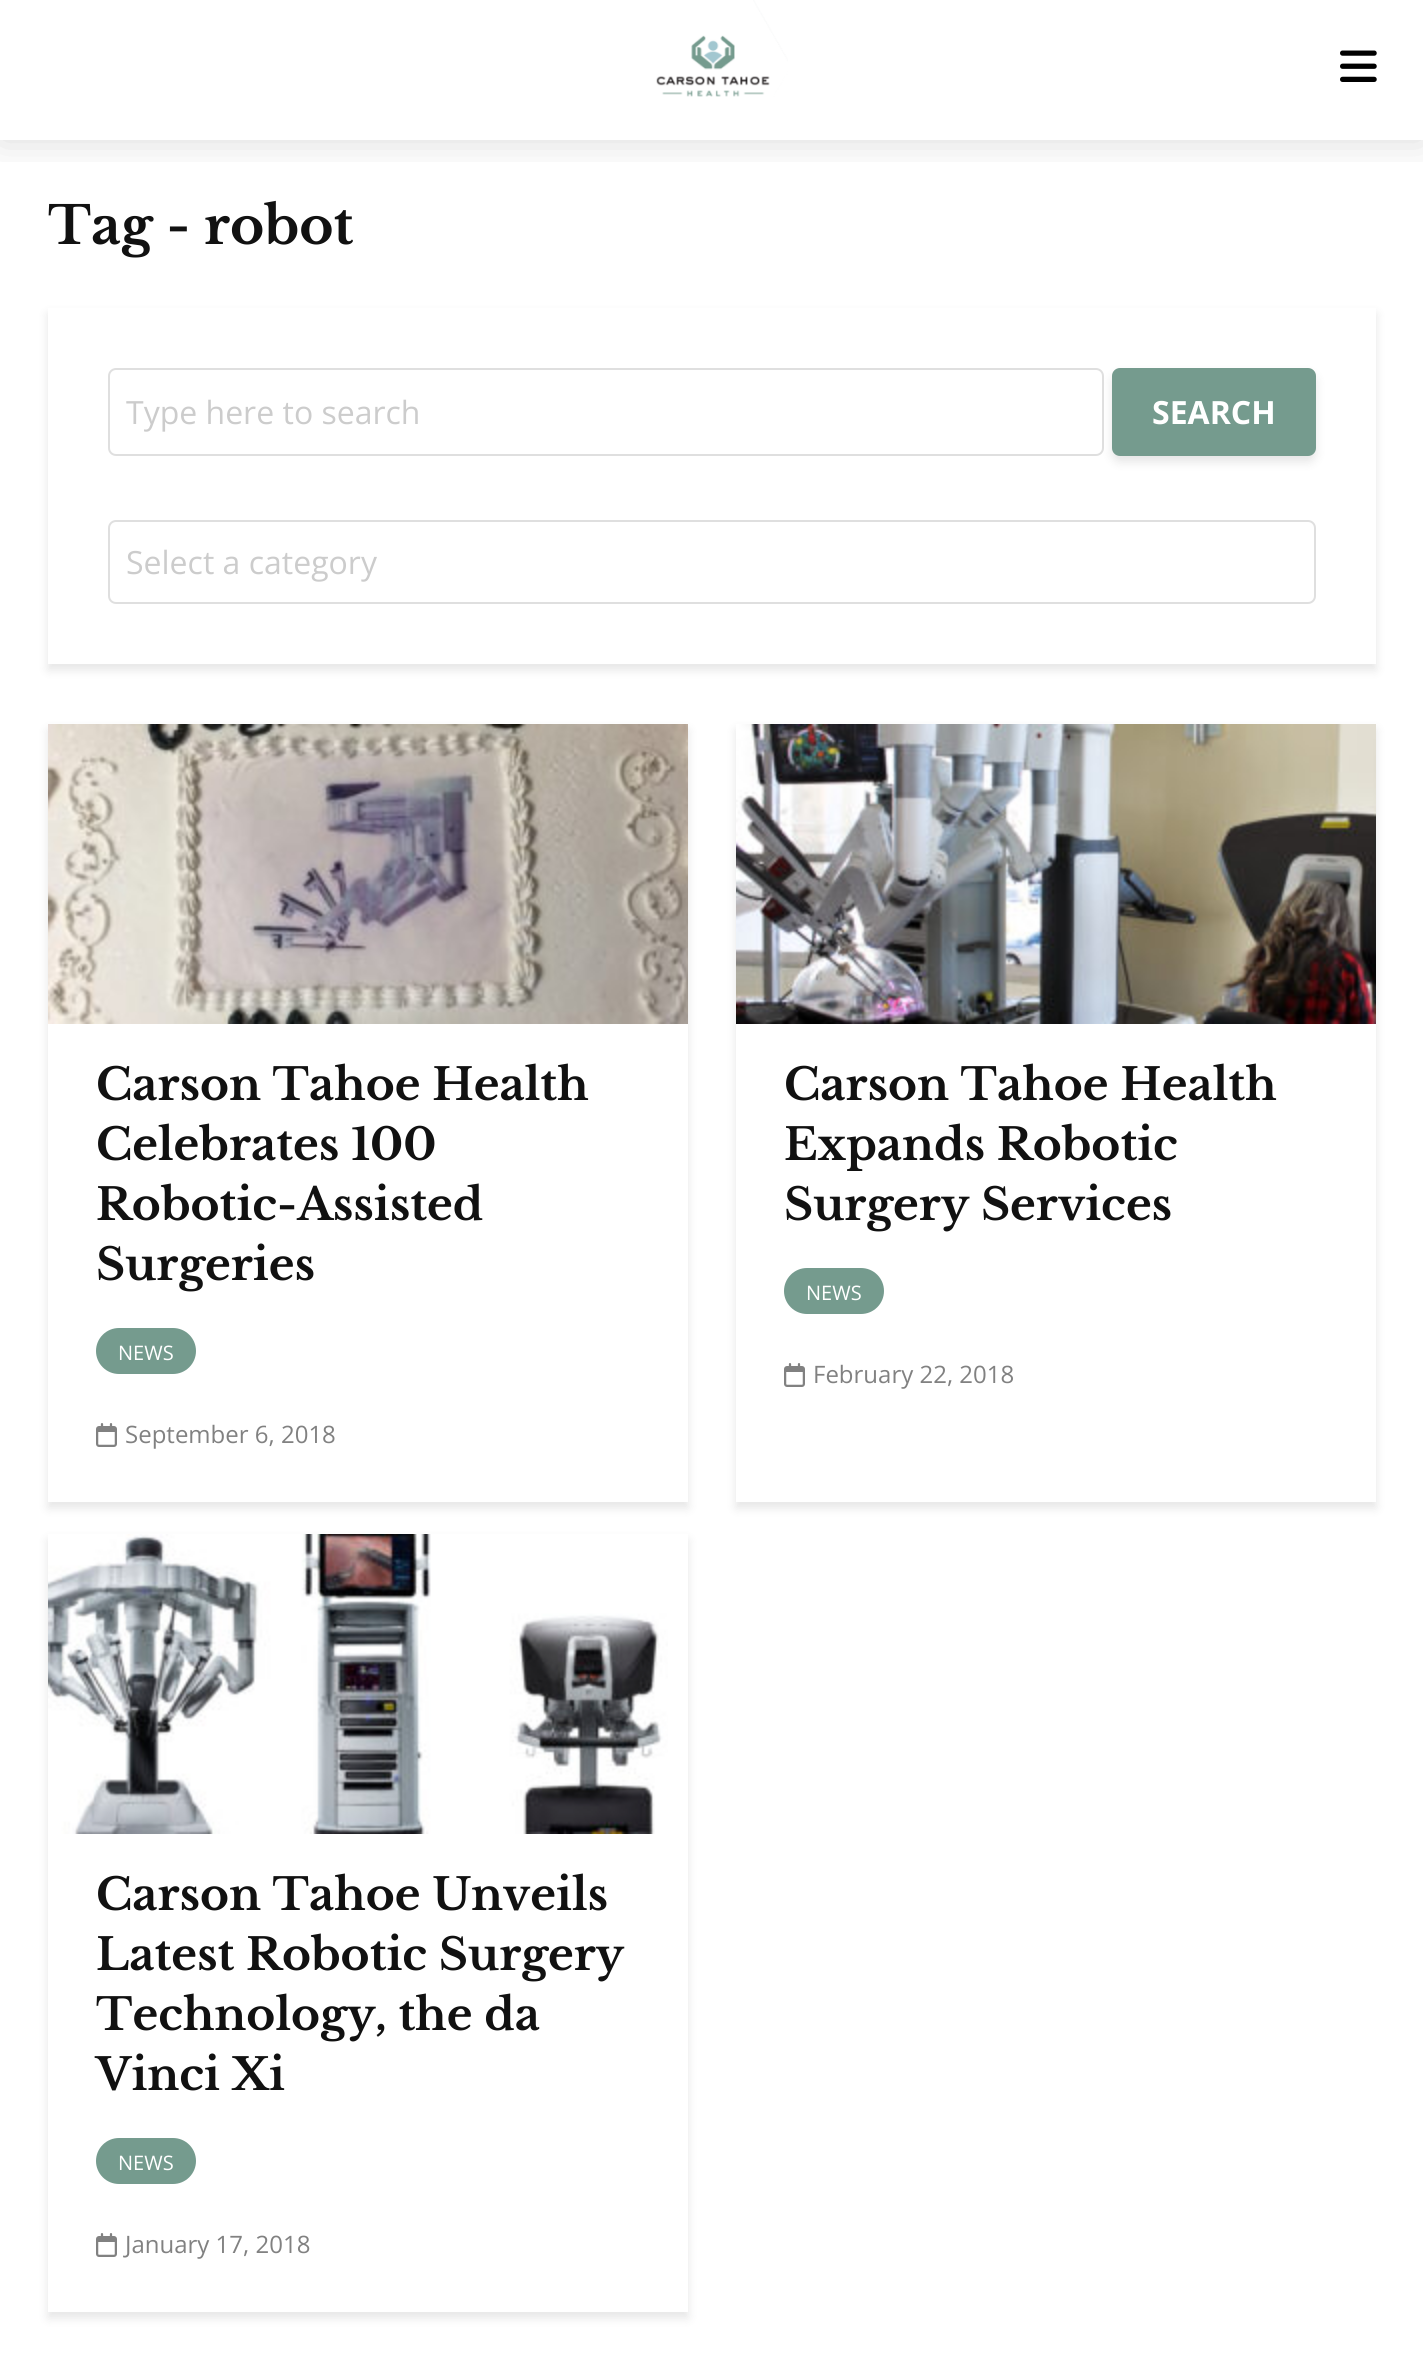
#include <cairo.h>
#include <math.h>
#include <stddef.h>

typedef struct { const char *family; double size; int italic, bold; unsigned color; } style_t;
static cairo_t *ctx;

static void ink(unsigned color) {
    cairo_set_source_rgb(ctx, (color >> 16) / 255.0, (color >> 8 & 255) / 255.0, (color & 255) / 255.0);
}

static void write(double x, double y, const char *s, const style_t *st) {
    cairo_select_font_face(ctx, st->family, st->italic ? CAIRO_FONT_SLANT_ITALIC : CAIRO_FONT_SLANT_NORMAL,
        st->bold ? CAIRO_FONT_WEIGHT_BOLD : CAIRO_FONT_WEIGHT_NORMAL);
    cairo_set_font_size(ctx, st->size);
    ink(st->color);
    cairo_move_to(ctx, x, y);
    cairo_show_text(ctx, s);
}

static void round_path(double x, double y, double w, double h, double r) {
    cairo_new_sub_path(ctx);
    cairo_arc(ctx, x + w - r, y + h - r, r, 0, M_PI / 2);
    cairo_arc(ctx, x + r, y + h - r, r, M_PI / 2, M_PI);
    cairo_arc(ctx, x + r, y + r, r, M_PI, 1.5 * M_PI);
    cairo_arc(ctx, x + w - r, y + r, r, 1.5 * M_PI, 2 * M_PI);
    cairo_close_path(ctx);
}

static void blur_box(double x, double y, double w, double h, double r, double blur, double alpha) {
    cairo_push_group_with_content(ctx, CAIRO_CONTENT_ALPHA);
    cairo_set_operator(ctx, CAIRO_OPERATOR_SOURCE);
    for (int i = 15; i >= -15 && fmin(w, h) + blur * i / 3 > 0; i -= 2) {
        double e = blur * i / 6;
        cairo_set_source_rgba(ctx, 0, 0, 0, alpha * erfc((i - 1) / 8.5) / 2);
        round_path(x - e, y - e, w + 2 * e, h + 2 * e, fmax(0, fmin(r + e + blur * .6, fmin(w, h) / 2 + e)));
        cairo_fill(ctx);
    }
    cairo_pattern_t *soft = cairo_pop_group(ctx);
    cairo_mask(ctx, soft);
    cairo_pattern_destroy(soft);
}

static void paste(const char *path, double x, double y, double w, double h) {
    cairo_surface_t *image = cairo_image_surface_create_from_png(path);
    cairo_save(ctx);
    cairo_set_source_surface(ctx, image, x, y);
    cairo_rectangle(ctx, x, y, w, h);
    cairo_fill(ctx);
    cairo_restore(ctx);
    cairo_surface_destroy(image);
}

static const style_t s1 = {"Libre Baskerville", 52, 0, 1, 0x111111};
static const style_t s2 = {"Open Sans", 32, 0, 0, 0xcccccc};
static const style_t s3 = {"Open Sans", 32, 0, 1, 0xffffff};
static const style_t s4 = {"Libre Baskerville", 44, 0, 1, 0x111111};
static const style_t s5 = {"Open Sans", 20, 0, 0, 0xffffff};
static const style_t s6 = {"Open Sans", 24, 0, 0, 0x818181};

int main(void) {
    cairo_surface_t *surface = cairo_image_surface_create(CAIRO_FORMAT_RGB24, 1423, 2380);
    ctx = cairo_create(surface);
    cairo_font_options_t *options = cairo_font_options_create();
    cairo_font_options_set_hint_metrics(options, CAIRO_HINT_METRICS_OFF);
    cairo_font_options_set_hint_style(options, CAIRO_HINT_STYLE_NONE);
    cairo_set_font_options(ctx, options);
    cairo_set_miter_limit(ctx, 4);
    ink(0xffffff);
    cairo_paint(ctx);
    cairo_save(ctx);
    cairo_rectangle(ctx, 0, 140, 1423, 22);
    cairo_clip(ctx);
    ink(0x000000);
    blur_box(0, 0, 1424, 140, 0, 20, 0.15);
    cairo_restore(ctx);
    paste("pic1.png", 656, 0, 132, 97);
    paste("pic2.png", 1340, 50, 37, 32);
    write(48, 244, "Tag - robot", &s1);
    cairo_save(ctx);
    cairo_set_fill_rule(ctx, CAIRO_FILL_RULE_EVEN_ODD);
    cairo_new_path(ctx);
    cairo_move_to(ctx, 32, 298);
    cairo_line_to(ctx, 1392, 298);
    cairo_line_to(ctx, 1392, 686);
    cairo_line_to(ctx, 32, 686);
    cairo_close_path(ctx);
    cairo_move_to(ctx, 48, 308);
    cairo_line_to(ctx, 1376, 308);
    cairo_line_to(ctx, 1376, 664);
    cairo_line_to(ctx, 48, 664);
    cairo_close_path(ctx);
    cairo_clip(ctx);
    ink(0x000101);
    blur_box(48, 314, 1328, 356, 0, 5, 0.1);
    cairo_restore(ctx);
    round_path(109, 369, 994, 86, 7);
    ink(0xdfdfdf);
    cairo_stroke(ctx);
    write(126, 424, "Type here to search", &s2);
    ink(0x000000);
    blur_box(1112, 374, 204, 88, 8, 5, 0.1);
    ink(0x759b8e);
    round_path(1112, 368, 204, 88, 8);
    cairo_fill(ctx);
    write(1152, 424, "SEARCH", &s3);
    round_path(109, 521, 1206, 82, 7);
    ink(0xdfdfdf);
    cairo_stroke(ctx);
    write(126, 574, "Select a category", &s2);
    cairo_save(ctx);
    cairo_set_fill_rule(ctx, CAIRO_FILL_RULE_EVEN_ODD);
    cairo_new_path(ctx);
    cairo_move_to(ctx, 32, 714);
    cairo_line_to(ctx, 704, 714);
    cairo_line_to(ctx, 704, 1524);
    cairo_line_to(ctx, 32, 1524);
    cairo_close_path(ctx);
    cairo_move_to(ctx, 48, 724);
    cairo_line_to(ctx, 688, 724);
    cairo_line_to(ctx, 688, 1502);
    cairo_line_to(ctx, 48, 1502);
    cairo_close_path(ctx);
    cairo_clip(ctx);
    ink(0x000101);
    blur_box(48, 730, 640, 778, 0, 5, 0.1);
    cairo_restore(ctx);
    paste("pic3.png", 48, 724, 640, 300);
    write(96, 1100, "Carson Tahoe Health", &s4);
    write(96, 1160, "Celebrates 100", &s4);
    write(96, 1220, "Robotic-Assisted", &s4);
    write(96, 1280, "Surgeries", &s4);
    ink(0x759b8e);
    round_path(96, 1328, 100, 46, 23);
    cairo_fill(ctx);
    write(118, 1360, "NEWS", &s5);
    paste("pic4.png", 96, 1423, 21, 24);
    write(125, 1443, "September 6, 2018", &s6);
    cairo_save(ctx);
    cairo_set_fill_rule(ctx, CAIRO_FILL_RULE_EVEN_ODD);
    cairo_new_path(ctx);
    cairo_move_to(ctx, 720, 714);
    cairo_line_to(ctx, 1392, 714);
    cairo_line_to(ctx, 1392, 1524);
    cairo_line_to(ctx, 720, 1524);
    cairo_close_path(ctx);
    cairo_move_to(ctx, 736, 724);
    cairo_line_to(ctx, 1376, 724);
    cairo_line_to(ctx, 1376, 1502);
    cairo_line_to(ctx, 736, 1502);
    cairo_close_path(ctx);
    cairo_clip(ctx);
    ink(0x000101);
    blur_box(736, 730, 640, 778, 0, 5, 0.1);
    cairo_restore(ctx);
    paste("pic5.png", 736, 724, 640, 300);
    write(784, 1100, "Carson Tahoe Health", &s4);
    write(784, 1160, "Expands Robotic", &s4);
    write(784, 1220, "Surgery Services", &s4);
    ink(0x759b8e);
    round_path(784, 1268, 100, 46, 23);
    cairo_fill(ctx);
    write(806, 1300, "NEWS", &s5);
    paste("pic4.png", 784, 1363, 21, 24);
    write(813, 1383, "February 22, 2018", &s6);
    cairo_save(ctx);
    cairo_set_fill_rule(ctx, CAIRO_FILL_RULE_EVEN_ODD);
    cairo_new_path(ctx);
    cairo_move_to(ctx, 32, 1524);
    cairo_line_to(ctx, 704, 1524);
    cairo_line_to(ctx, 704, 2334);
    cairo_line_to(ctx, 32, 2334);
    cairo_close_path(ctx);
    cairo_move_to(ctx, 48, 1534);
    cairo_line_to(ctx, 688, 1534);
    cairo_line_to(ctx, 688, 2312);
    cairo_line_to(ctx, 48, 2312);
    cairo_close_path(ctx);
    cairo_clip(ctx);
    ink(0x000101);
    blur_box(48, 1540, 640, 778, 0, 5, 0.1);
    cairo_restore(ctx);
    paste("pic6.png", 48, 1534, 620, 300);
    write(96, 1910, "Carson Tahoe Unveils", &s4);
    write(96, 1970, "Latest Robotic Surgery", &s4);
    write(96, 2030, "Technology, the da", &s4);
    write(96, 2090, "Vinci Xi", &s4);
    ink(0x759b8e);
    round_path(96, 2138, 100, 46, 23);
    cairo_fill(ctx);
    write(118, 2170, "NEWS", &s5);
    paste("pic4.png", 96, 2233, 21, 24);
    write(125, 2253, "January 17, 2018", &s6);
    cairo_surface_write_to_png(surface, "screenshot.png");
    cairo_font_options_destroy(options);
    cairo_destroy(ctx);
    cairo_surface_destroy(surface);
    return 0;
}
